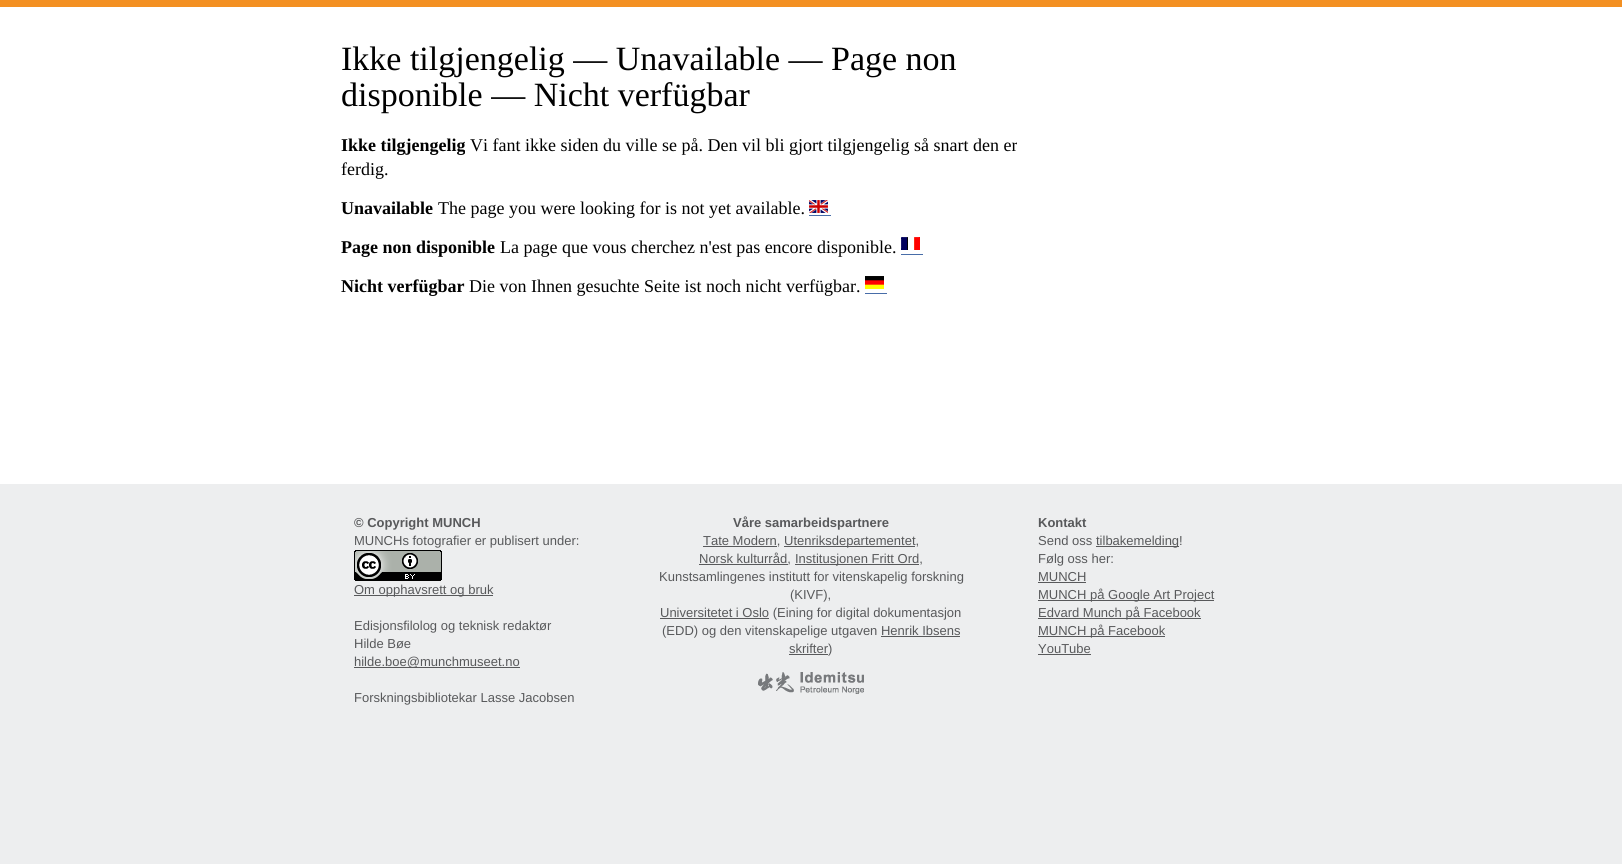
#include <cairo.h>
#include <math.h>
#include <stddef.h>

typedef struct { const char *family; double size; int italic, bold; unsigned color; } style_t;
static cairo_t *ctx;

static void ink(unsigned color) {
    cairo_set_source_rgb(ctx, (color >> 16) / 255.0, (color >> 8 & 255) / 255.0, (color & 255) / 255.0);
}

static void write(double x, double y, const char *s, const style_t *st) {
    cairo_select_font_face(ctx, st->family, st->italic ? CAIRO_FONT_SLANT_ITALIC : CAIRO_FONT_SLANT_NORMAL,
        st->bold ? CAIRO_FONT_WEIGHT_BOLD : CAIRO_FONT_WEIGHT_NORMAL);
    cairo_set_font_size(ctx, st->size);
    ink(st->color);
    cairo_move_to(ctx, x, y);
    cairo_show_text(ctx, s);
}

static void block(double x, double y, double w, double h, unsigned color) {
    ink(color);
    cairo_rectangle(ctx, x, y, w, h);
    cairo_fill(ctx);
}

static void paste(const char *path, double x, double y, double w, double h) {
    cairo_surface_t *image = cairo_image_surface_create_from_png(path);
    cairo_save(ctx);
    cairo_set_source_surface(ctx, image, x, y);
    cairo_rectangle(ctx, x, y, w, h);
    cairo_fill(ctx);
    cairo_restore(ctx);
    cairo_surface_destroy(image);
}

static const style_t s1 = {"Liberation Serif", 34, 0, 0, 0x000000};
static const style_t s2 = {"Liberation Serif", 18, 0, 1, 0x000000};
static const style_t s3 = {"Liberation Serif", 18, 0, 0, 0x000000};
static const style_t s4 = {"Liberation Sans", 13, 0, 1, 0x58595b};
static const style_t s5 = {"Liberation Sans", 13, 0, 0, 0x58595b};

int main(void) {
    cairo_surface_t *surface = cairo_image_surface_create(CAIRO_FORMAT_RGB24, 1622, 864);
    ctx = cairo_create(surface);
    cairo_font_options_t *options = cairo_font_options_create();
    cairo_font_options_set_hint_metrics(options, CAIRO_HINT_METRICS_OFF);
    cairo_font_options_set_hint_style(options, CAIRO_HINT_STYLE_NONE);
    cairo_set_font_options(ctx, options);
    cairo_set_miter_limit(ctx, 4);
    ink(0xffffff);
    cairo_paint(ctx);
    block(0, 0, 1622, 7, 0xf39022);
    write(341, 70, "Ikke tilgjengelig — Unavailable — Page non", &s1);
    write(341, 106, "disponible — Nicht verfügbar", &s1);
    write(341, 151, "Ikke tilgjengelig", &s2);
    write(470, 151, "Vi fant ikke siden du ville se på. Den vil bli gjort tilgjengelig så snart den er", &s3);
    write(341, 175, "ferdig.", &s3);
    write(341, 214, "Unavailable", &s2);
    write(438, 214, "The page you were looking for is not yet available.", &s3);
    paste("pic1.png", 809, 200, 19, 13);
    block(809, 215, 22, 1, 0x486da8);
    write(341, 253, "Page non disponible", &s2);
    write(500, 253, "La page que vous cherchez n'est pas encore disponible.", &s3);
    paste("pic2.png", 901, 237, 19, 13);
    block(901, 254, 22, 1, 0x486da8);
    write(341, 292, "Nicht verfügbar", &s2);
    write(469, 292, "Die von Ihnen gesuchte Seite ist noch nicht verfügbar.", &s3);
    paste("pic3.png", 865, 276, 19, 13);
    block(865, 293, 22, 1, 0x486da8);
    block(0, 484, 1622, 380, 0xedeeef);
    write(354, 527, "© Copyright MUNCH", &s4);
    write(354, 545, "MUNCHs fotografier er publisert under:", &s5);
    paste("pic4.png", 354, 550, 88, 31);
    block(354, 595, 139, 1, 0x58595b);
    write(354, 594, "Om opphavsrett og bruk", &s5);
    write(354, 630, "Edisjonsfilolog og teknisk redaktør", &s5);
    write(354, 648, "Hilde Bøe", &s5);
    block(354, 667, 166, 1, 0x58595b);
    write(354, 666, "hilde.boe@munchmuseet.no", &s5);
    write(354, 702, "Forskningsbibliotekar Lasse Jacobsen", &s5);
    write(733, 527, "Våre samarbeidspartnere", &s4);
    block(703, 546, 74, 1, 0x58595b);
    write(703, 545, "Tate Modern,", &s5);
    block(784, 546, 131, 1, 0x58595b);
    write(784, 545, "Utenriksdepartementet,", &s5);
    block(699, 564, 89, 1, 0x58595b);
    write(699, 563, "Norsk kulturråd,", &s5);
    block(795, 564, 124, 1, 0x58595b);
    write(795, 563, "Institusjonen Fritt Ord,", &s5);
    write(659, 581, "Kunstsamlingenes institutt for vitenskapelig forskning", &s5);
    write(790, 599, "(KIVF),", &s5);
    block(660, 618, 109, 1, 0x58595b);
    write(660, 617, "Universitetet i Oslo (Eining for digital dokumentasjon", &s5);
    write(662, 635, "(EDD) og den vitenskapelige utgaven Henrik Ibsens", &s5);
    block(789, 654, 39, 1, 0x58595b);
    write(789, 653, "skrifter)", &s5);
    block(881, 636, 79, 1, 0x58595b);
    paste("pic5.png", 758, 672, 106, 22);
    write(1038, 527, "Kontakt", &s4);
    write(1038, 545, "Send oss", &s5);
    block(1096, 546, 83, 1, 0x58595b);
    write(1096, 545, "tilbakemelding!", &s5);
    write(1038, 563, "Følg oss her:", &s5);
    write(1038, 581, "MUNCH", &s5);
    block(1038, 582, 48, 1, 0x58595b);
    block(1038, 600, 176, 1, 0x58595b);
    write(1038, 599, "MUNCH på Google Art Project", &s5);
    block(1038, 618, 163, 1, 0x58595b);
    write(1038, 617, "Edvard Munch på Facebook", &s5);
    block(1038, 636, 127, 1, 0x58595b);
    write(1038, 635, "MUNCH på Facebook", &s5);
    write(1038, 653, "YouTube", &s5);
    block(1038, 654, 53, 1, 0x58595b);
    cairo_surface_write_to_png(surface, "screenshot.png");
    cairo_font_options_destroy(options);
    cairo_destroy(ctx);
    cairo_surface_destroy(surface);
    return 0;
}
